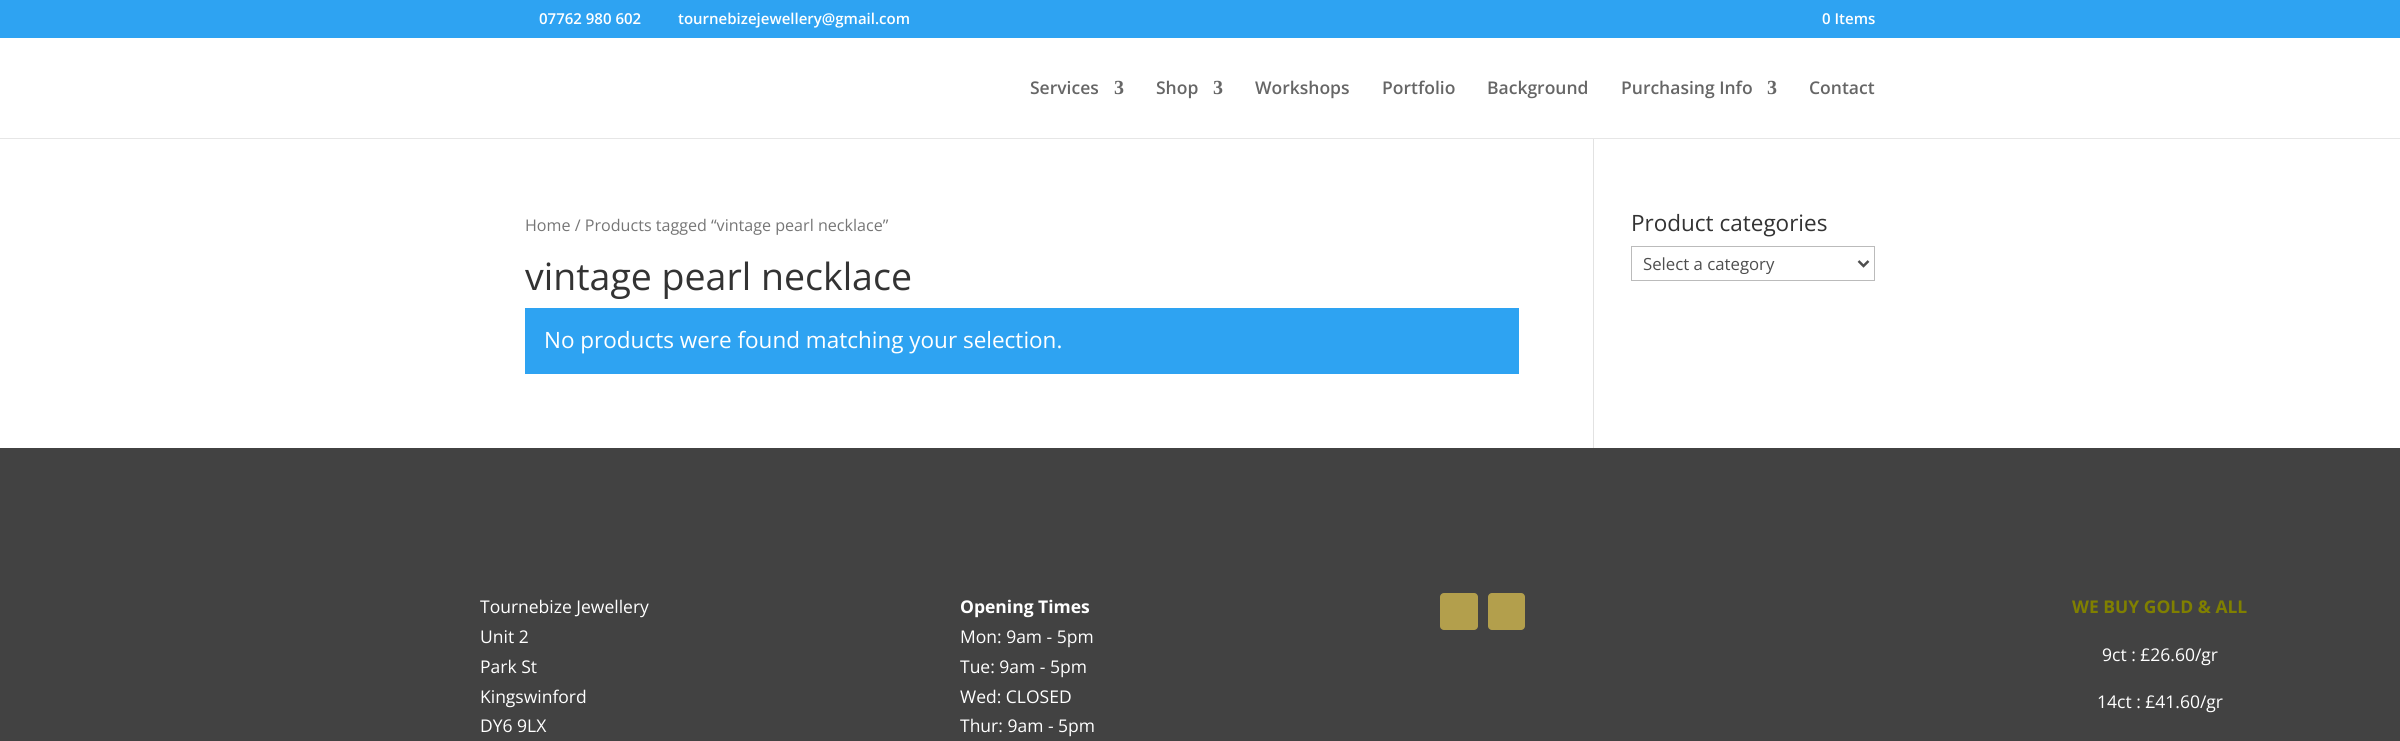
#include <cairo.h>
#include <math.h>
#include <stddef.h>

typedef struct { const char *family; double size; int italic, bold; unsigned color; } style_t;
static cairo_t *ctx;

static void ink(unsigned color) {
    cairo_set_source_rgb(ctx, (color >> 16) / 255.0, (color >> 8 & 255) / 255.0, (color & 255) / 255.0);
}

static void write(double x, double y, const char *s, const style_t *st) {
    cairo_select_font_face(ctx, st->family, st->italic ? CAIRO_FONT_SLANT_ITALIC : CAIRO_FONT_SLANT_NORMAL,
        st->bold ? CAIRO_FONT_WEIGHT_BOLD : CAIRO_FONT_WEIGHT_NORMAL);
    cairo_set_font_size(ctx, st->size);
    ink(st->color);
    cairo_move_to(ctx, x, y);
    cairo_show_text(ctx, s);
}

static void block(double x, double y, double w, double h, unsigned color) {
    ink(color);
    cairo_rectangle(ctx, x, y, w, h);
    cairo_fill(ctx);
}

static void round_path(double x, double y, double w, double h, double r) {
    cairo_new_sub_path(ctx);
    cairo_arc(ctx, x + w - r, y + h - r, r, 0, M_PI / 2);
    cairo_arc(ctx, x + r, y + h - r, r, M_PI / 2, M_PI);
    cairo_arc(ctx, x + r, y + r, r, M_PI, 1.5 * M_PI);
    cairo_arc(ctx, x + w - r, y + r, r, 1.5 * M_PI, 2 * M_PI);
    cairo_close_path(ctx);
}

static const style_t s1 = {"Open Sans SemiBold", 15, 0, 0, 0xffffff};
static const style_t s2 = {"Open Sans SemiBold", 17.5, 0, 0, 0x666666};
static const style_t s3 = {"Liberation Serif", 20, 0, 1, 0x666666};
static const style_t s4 = {"Open Sans", 16.1, 0, 0, 0x767676};
static const style_t s5 = {"Open Sans", 37.5, 0, 0, 0x333333};
static const style_t s6 = {"Open Sans", 22.5, 0, 0, 0xffffff};
static const style_t s7 = {"Open Sans", 22.5, 0, 0, 0x333333};
static const style_t s8 = {"Open Sans", 16.75, 0, 0, 0x4e4e4e};
static const style_t s9 = {"Open Sans", 17.5, 0, 0, 0xffffff};
static const style_t s10 = {"Open Sans", 17.5, 0, 1, 0xffffff};
static const style_t s11 = {"Open Sans", 17.5, 0, 1, 0x808000};

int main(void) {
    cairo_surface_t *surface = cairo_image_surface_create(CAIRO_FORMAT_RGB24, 2400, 741);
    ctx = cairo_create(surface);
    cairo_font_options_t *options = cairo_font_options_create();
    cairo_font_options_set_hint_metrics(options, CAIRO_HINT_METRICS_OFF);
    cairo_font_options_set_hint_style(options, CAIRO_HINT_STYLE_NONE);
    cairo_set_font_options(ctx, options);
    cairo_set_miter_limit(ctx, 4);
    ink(0xffffff);
    cairo_paint(ctx);
    block(0, 0, 2400, 38, 0x2ea3f2);
    write(539, 24, "07762 980 602", &s1);
    write(678, 24, "tournebizejewellery@gmail.com", &s1);
    write(1822, 24, "0 Items", &s1);
    block(0, 138, 2400, 1, 0xe6e6e6);
    write(1030, 94, "Services", &s2);
    write(1114, 94, "3", &s3);
    write(1156, 94, "Shop", &s2);
    write(1213, 94, "3", &s3);
    write(1255, 94, "Workshops", &s2);
    write(1382, 94, "Portfolio", &s2);
    write(1487, 94, "Background", &s2);
    write(1621, 94, "Purchasing Info", &s2);
    write(1767, 94, "3", &s3);
    write(1809, 94, "Contact", &s2);
    block(1593, 139, 1, 309, 0xe2e2e2);
    write(525, 231, "Home / Products tagged “vintage pearl necklace”", &s4);
    write(525, 290, "vintage pearl necklace", &s5);
    block(525, 308, 994, 66, 0x2ea3f2);
    write(544, 348, "No products were found matching your selection.", &s6);
    write(1631, 231, "Product categories", &s7);
    cairo_rectangle(ctx, 1631.5, 246.5, 243, 34);
    ink(0xbbbbbb);
    cairo_set_line_width(ctx, 1);
    cairo_stroke(ctx);
    cairo_new_path(ctx);
    cairo_move_to(ctx, 1858.5, 261);
    cairo_line_to(ctx, 1863.5, 266);
    cairo_line_to(ctx, 1868.5, 261);
    ink(0x4e4e4e);
    cairo_set_line_width(ctx, 2.5);
    cairo_stroke(ctx);
    write(1643, 270, "Select a category", &s8);
    block(0, 448, 2400, 293, 0x424242);
    write(480, 613, "Tournebize Jewellery", &s9);
    write(480, 643, "Unit 2", &s9);
    write(480, 673, "Park St", &s9);
    write(480, 703, "Kingswinford", &s9);
    write(480, 732, "DY6 9LX", &s9);
    write(960, 613, "Opening Times", &s10);
    write(960, 643, "Mon: 9am - 5pm", &s9);
    write(960, 673, "Tue: 9am - 5pm", &s9);
    write(960, 703, "Wed: CLOSED", &s9);
    write(960, 732, "Thur: 9am - 5pm", &s9);
    ink(0xb39f4c);
    round_path(1440, 593, 38, 37, 4);
    cairo_fill(ctx);
    round_path(1488, 593, 37, 37, 4);
    cairo_fill(ctx);
    write(2072, 613, "WE BUY GOLD & ALL", &s11);
    write(2102, 661, "9ct : £26.60/gr", &s9);
    write(2097, 708, "14ct : £41.60/gr", &s9);
    cairo_surface_write_to_png(surface, "screenshot.png");
    cairo_font_options_destroy(options);
    cairo_destroy(ctx);
    cairo_surface_destroy(surface);
    return 0;
}
